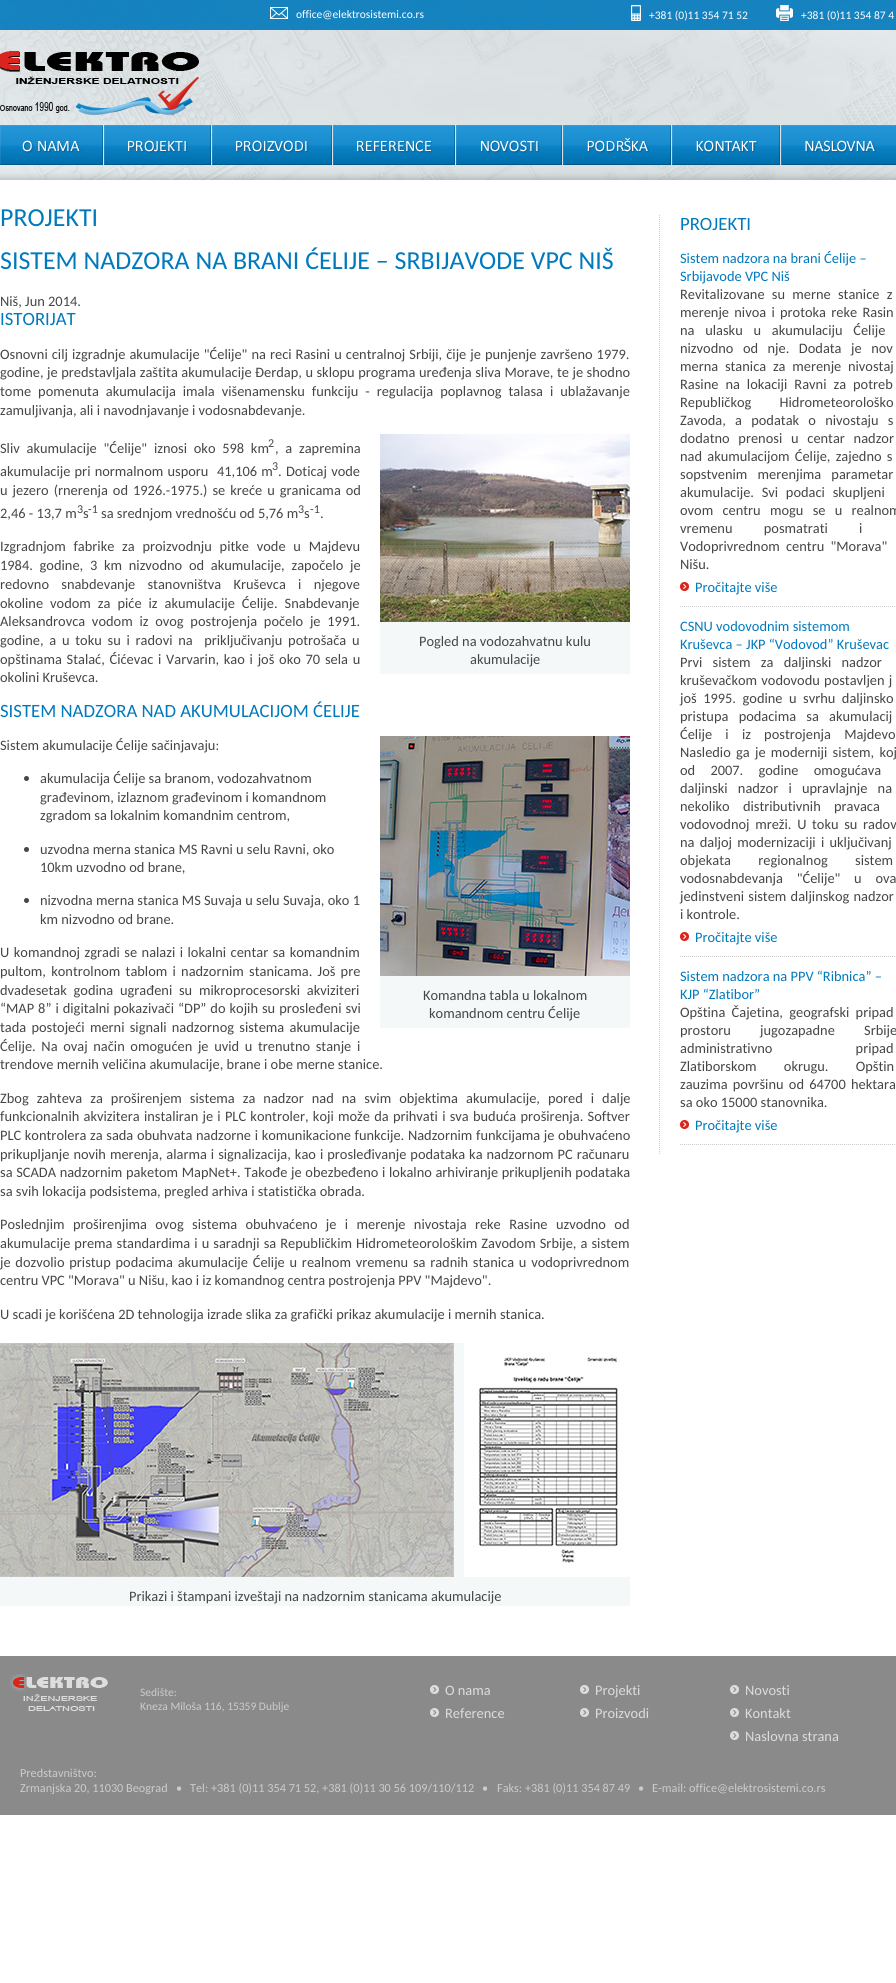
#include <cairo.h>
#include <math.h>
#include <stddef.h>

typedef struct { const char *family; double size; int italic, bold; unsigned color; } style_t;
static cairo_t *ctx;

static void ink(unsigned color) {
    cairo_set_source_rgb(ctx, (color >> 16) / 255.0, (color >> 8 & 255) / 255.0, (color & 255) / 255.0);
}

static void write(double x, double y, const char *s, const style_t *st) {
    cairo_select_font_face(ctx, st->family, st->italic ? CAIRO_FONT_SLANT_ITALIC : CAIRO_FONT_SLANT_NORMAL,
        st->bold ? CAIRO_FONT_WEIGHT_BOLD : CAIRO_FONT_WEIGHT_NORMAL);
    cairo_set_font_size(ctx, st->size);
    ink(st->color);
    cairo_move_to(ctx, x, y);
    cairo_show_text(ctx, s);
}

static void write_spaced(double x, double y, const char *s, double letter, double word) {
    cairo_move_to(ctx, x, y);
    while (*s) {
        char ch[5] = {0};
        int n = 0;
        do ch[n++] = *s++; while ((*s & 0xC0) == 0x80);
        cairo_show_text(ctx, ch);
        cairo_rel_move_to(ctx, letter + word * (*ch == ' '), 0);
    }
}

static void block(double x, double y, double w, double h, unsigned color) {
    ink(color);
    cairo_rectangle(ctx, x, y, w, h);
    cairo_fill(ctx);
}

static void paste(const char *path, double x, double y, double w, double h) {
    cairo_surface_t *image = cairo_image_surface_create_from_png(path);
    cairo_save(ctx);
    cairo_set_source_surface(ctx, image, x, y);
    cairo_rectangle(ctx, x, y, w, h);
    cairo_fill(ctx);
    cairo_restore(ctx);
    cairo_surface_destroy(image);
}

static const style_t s1 = {"Carlito", 11.5, 0, 0, 0xffffff};
static const style_t s2 = {"Carlito", 25.9, 0, 0, 0x0079bd};
static const style_t s3 = {"Carlito", 14.4, 0, 0, 0x464646};
static const style_t s4 = {"Carlito", 18.75, 0, 0, 0x0079bd};
static const style_t s5 = {"Carlito", 12, 0, 0, 0x464646};
static const style_t s6 = {"Carlito", 14.4, 0, 0, 0x0079bd};
static const style_t s7 = {"Carlito", 11.5, 0, 0, 0xcccccc};
static const style_t s8 = {"Carlito", 14.4, 0, 0, 0xdcdcdc};
static const style_t s9 = {"Carlito", 12.25, 0, 0, 0xcccccc};

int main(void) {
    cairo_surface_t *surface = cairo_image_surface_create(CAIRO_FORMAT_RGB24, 896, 1983);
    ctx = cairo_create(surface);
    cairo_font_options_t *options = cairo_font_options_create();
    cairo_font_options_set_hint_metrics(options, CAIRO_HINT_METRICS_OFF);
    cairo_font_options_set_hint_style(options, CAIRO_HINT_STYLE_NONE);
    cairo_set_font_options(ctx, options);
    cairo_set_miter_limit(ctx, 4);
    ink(0xffffff);
    cairo_paint(ctx);
    paste("pic1.png", 0, 0, 896, 180);
    cairo_set_source_rgba(ctx, 0, 0.475, 0.737, 0.9);
    cairo_rectangle(ctx, 0, 0, 896, 30);
    cairo_fill(ctx);
    paste("pic2.png", 270, 7, 18, 12);
    write(296, 18, "office@elektrosistemi.co.rs", &s1);
    paste("pic3.png", 631, 5, 10, 16);
    write(649, 19, "+381 (0)11 354 71 52", &s1);
    paste("pic4.png", 776, 5, 17, 16);
    write(801, 19, "+381 (0)11 354 87 4", &s1);
    paste("pic5.png", 0, 51, 199, 65);
    paste("pic6.png", 0, 125, 103, 40);
    paste("pic7.png", 104, 125, 107, 40);
    paste("pic8.png", 212, 125, 120, 40);
    paste("pic9.png", 333, 125, 122, 40);
    paste("pic10.png", 456, 125, 106, 40);
    paste("pic11.png", 563, 125, 108, 40);
    paste("pic12.png", 672, 125, 108, 40);
    paste("pic13.png", 781, 125, 115, 40);
    write(0, 226, "PROJEKTI", &s2);
    write(0, 269, "SISTEM NADZORA NA BRANI ĆELIJE – SRBIJAVODE VPC NIŠ", &s2);
    write(0, 306, "Niš, Jun 2014.", &s3);
    write(0, 325, "ISTORIJAT", &s4);
    cairo_set_font_size(ctx, 14.4);
    ink(0x464646);
    write_spaced(0, 359, "Osnovni cilj izgradnje akumulacije \"Ćelije\" na reci Rasini u centralnoj Srbiji, čije je punjenje završeno 1979.", 0, 0.8);
    write_spaced(0, 377, "godine, je predstavljala zaštita akumulacije Đerdap, u sklopu programa uređenja sliva Morave, te je shodno", 0, 0.25);
    write_spaced(0, 396, "tome pomenuta akumulacija imala višenamensku funkciju - regulacija poplavnog talasa i ublažavanje", 0, 3.75);
    write(0, 415, "zamuljivanja, ali i navodnjavanje i vodosnabdevanje.", &s3);
    write_spaced(0, 453, "Sliv akumulacije \"Ćelije\" iznosi oko 598 km", 0, 3.5);
    write(268, 447, "2", &s5);
    cairo_set_font_size(ctx, 14.4);
    write_spaced(275, 453, ", a zapremina", 0, 3.5);
    write_spaced(0, 476, "akumulacije pri normalnom usporu  41,106 m", 0, 1);
    write(272, 470, "3", &s5);
    cairo_set_font_size(ctx, 14.4);
    write_spaced(278, 476, ". Doticaj vode", 0, 1);
    write_spaced(0, 495, "u jezero (rnerenja od 1926.-1975.) se kreće u granicama od", 0, 1.75);
    write(0, 518, "2,46 - 13,7 m", &s3);
    write(77, 513, "3", &s5);
    write(83, 518, "s", &s3);
    write(88, 513, "-1", &s5);
    write(101, 518, "sa srednjom vrednošću od 5,76 m", &s3);
    write(298, 513, "3", &s5);
    write(304, 518, "s", &s3);
    write(310, 513, "-1", &s5);
    write(320, 518, ".", &s3);
    write_spaced(0, 551, "Izgradnjom fabrike za proizvodnju pitke vode u Majdevu", 0, 4.5);
    write_spaced(0, 570, "1984. godine, 3 km nizvodno od akumulacije, započelo je", 0, 3.5);
    write_spaced(0, 589, "redovno snabdevanje stanovništva Kruševca i njegove", 0, 9);
    write_spaced(0, 608, "okoline vodom za piće iz akumulacije Ćelije. Snabdevanje", 0, 3.75);
    write_spaced(0, 626, "Aleksandrovca vodom iz ovog postrojenja počelo je 1991.", 0, 3.5);
    write_spaced(0, 645, "godine, a u toku su i radovi na  priključivanju potrošača u", 0, 2.5);
    write_spaced(0, 664, "opštinama Stalać, Ćićevac i Varvarin, kao i još oko 70 sela u", 0, 1.5);
    write(0, 682, "okolini Kruševca.", &s3);
    block(380, 622, 250, 52, 0xf5f8f8);
    paste("pic14.png", 380, 434, 250, 188);
    write(419, 646, "Pogled na vodozahvatnu kulu", &s3);
    write(470, 664, "akumulacije", &s3);
    write(0, 717, "SISTEM NADZORA NAD AKUMULACIJOM ĆELIJE", &s4);
    write(0, 750, "Sistem akumulacije Ćelije sačinjavaju:", &s3);
    cairo_new_path(ctx);
    cairo_arc(ctx, 26.5, 778.5, 2.5, 0, 2 * M_PI);
    cairo_fill(ctx);
    write(40, 783, "akumulacija Ćelije sa branom, vodozahvatnom", &s3);
    write(40, 802, "građevinom, izlaznom građevinom i komandnom", &s3);
    write(40, 820, "zgradom sa lokalnim komandnim centrom,", &s3);
    cairo_new_path(ctx);
    cairo_arc(ctx, 26.5, 849.5, 2.5, 0, 2 * M_PI);
    cairo_fill(ctx);
    write(40, 854, "uzvodna merna stanica MS Ravni u selu Ravni, oko", &s3);
    write(40, 872, "10km uzvodno od brane,", &s3);
    cairo_new_path(ctx);
    cairo_arc(ctx, 26.5, 900.5, 2.5, 0, 2 * M_PI);
    cairo_fill(ctx);
    write(40, 905, "nizvodna merna stanica MS Suvaja u selu Suvaja, oko 1", &s3);
    write(40, 924, "km nizvodno od brane.", &s3);
    write_spaced(0, 957, "U komandnoj zgradi se nalazi i lokalni centar sa komandnim", 0, 1.25);
    write_spaced(0, 976, "pultom, kontrolnom tablom i nadzornim stanicama. Još pre", 0, 2);
    write_spaced(0, 995, "dvadesetak godina ugrađeni su mikroprocesorski akviziteri", 0, 3.5);
    write_spaced(0, 1013, "“MAP 8” i digitalni pokazivači “DP” do kojih su prosleđeni svi", 0, 0.75);
    write_spaced(0, 1032, "tada postojeći merni signali nadzornog sistema akumulacije", 0, 2);
    write_spaced(0, 1051, "Ćelije. Na ovaj način omogućen je uvid u trenutno stanje i", 0, 2.4);
    write(0, 1069, "trendove mernih veličina akumulacije, brane i obe merne stanice.", &s3);
    block(380, 976, 250, 52, 0xf5f8f8);
    paste("pic15.png", 380, 736, 250, 240);
    write(423, 1000, "Komandna tabla u lokalnom", &s3);
    write(429, 1018, "komandnom centru Ćelije", &s3);
    write_spaced(0, 1103, "Zbog zahteva za proširenjem sistema za nadzor nad na svim objektima akumulacije, pored i dalje", 0, 4.75);
    write_spaced(0, 1121, "funkcionalnih akvizitera instaliran je i PLC kontroler, koji može da prihvati i sva buduća proširenja. Softver", 0, 1);
    write_spaced(0, 1140, "PLC kontrolera za sada obuhvata nadzorne i komunikacione funkcije. Nadzornim funkcijama je obuhvaćeno", 0, 0.4);
    write_spaced(0, 1159, "prikupljanje novih merenja, alarma i signalizacija, kao i prosleđivanje podataka ka nadzornom PC računaru", 0, 0.75);
    write_spaced(0, 1177, "sa SCADA nadzornim paketom MapNet+. Takođe je obezbeđeno i lokalno arhiviranje prikupljenih podataka", 0, 0.4);
    write(0, 1196, "sa svih lokacija podsistema, pregled arhiva i statistička obrada.", &s3);
    write_spaced(0, 1229, "Poslednjim proširenjima ovog sistema obuhvaćeno je i merenje nivostaja reke Rasine uzvodno od", 0, 5.1);
    write_spaced(0, 1248, "akumulacije prema standardima i u saradnji sa Republičkim Hidrometeorološkim Zavodom Srbije, a sistem", 0, 0.8);
    write_spaced(0, 1267, "je dozvolio pristup podacima akumulacije Ćelije u realnom vremenu sa radnih stanica u vodoprivrednom", 0, 1.5);
    write(0, 1285, "centru VPC \"Morava\" u Nišu, kao i iz komandnog centra postrojenja PPV \"Majdevo\".", &s3);
    write(0, 1319, "U scadi je korišćena 2D tehnologija izrade slika za grafički prikaz akumulacije i mernih stanica.", &s3);
    block(0, 1343, 630, 263, 0xf5f8f8);
    paste("pic16.png", 0, 1343, 454, 234);
    paste("pic17.png", 464, 1343, 166, 234);
    write(129, 1601, "Prikazi i štampani izveštaji na nadzornim stanicama akumulacije", &s3);
    cairo_new_path(ctx);
    cairo_move_to(ctx, 659.5, 215);
    cairo_line_to(ctx, 659.5, 1155);
    ink(0xcccccc);
    cairo_set_line_width(ctx, 1);
    cairo_set_dash(ctx, (double[]){1, 1}, 2, 0);
    cairo_stroke(ctx);
    write(680, 230, "PROJEKTI", &s4);
    cairo_new_path(ctx);
    cairo_move_to(ctx, 680, 606.5);
    cairo_line_to(ctx, 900, 606.5);
    ink(0xcccccc);
    cairo_stroke(ctx);
    write(680, 263, "Sistem nadzora na brani Ćelije –", &s6);
    write(680, 281, "Srbijavode VPC Niš", &s6);
    ink(0x464646);
    write_spaced(680, 299, "Revitalizovane su merne stanice z", 0, 4);
    write_spaced(680, 317, "merenje nivoa i protoka reke Rasin", 0, 2);
    write_spaced(680, 335, "na ulasku u akumulaciju Ćelije", 0, 7.5);
    write_spaced(680, 353, "nizvodno od nje. Dodata je nov", 0, 6.25);
    write_spaced(680, 371, "merna stanica za merenje nivostaj", 0, 3.5);
    write_spaced(680, 389, "Rasine na lokaciji Ravni za potreb", 0, 3.75);
    write_spaced(680, 407, "Republičkog Hidrometeorološko", 0, 25);
    write_spaced(680, 425, "Zavoda, a podatak o nivostaju s", 0, 6);
    write_spaced(680, 443, "dodatno prenosi u centar nadzor", 0, 5.5);
    write_spaced(680, 461, "nad akumulacijom Ćelije, zajedno s", 0, 2);
    write_spaced(680, 479, "sopstvenim merenjima parametar", 0, 7);
    write_spaced(680, 497, "akumulacije. Svi podaci skupljeni", 0, 4.5);
    write_spaced(680, 515, "ovom centru mogu se u realnom", 0, 6);
    write_spaced(680, 533, "vremenu posmatrati i", 0, 28);
    write_spaced(680, 551, "Vodoprivrednom centru \"Morava\"", 0, 3);
    write(680, 569, "Nišu.", &s3);
    paste("pic18.png", 680, 582, 9, 9);
    write(695, 592, "Pročitajte više", &s6);
    cairo_new_path(ctx);
    cairo_move_to(ctx, 680, 956.5);
    cairo_line_to(ctx, 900, 956.5);
    ink(0xcccccc);
    cairo_stroke(ctx);
    write(680, 631, "CSNU vodovodnim sistemom", &s6);
    write(680, 649, "Kruševca – JKP “Vodovod” Kruševac", &s6);
    ink(0x464646);
    write_spaced(680, 667, "Prvi sistem za daljinski nadzor", 0, 7);
    write_spaced(680, 685, "kruševačkom vodovodu postavljen j", 0, 1);
    write_spaced(680, 703, "još 1995. godine u svrhu daljinsko", 0, 3.25);
    write_spaced(680, 721, "pristupa podacima sa akumulacij", 0, 7);
    write_spaced(680, 739, "Ćelije i iz postrojenja Majdevo", 0, 10);
    write_spaced(680, 757, "Nasledio ga je moderniji sistem, koj", 0, 2);
    write_spaced(680, 775, "od 2007. godine omogućava", 0, 12);
    write_spaced(680, 793, "daljinski nadzor i upravlajnje na", 0, 7);
    write_spaced(680, 811, "nekoliko distributivnih pravaca", 0, 10);
    write_spaced(680, 829, "vodovodnoj mreži. U toku su radov", 0, 2.4);
    write_spaced(680, 847, "na daljoj modernizaciji i uključivanj", 0, 2);
    write_spaced(680, 865, "objekata regionalnog sistem", 0, 24);
    write_spaced(680, 883, "vodosnabdevanja \"Ćelije\" u ova", 0, 10.5);
    write_spaced(680, 901, "jedinstveni sistem daljinskog nadzor", 0, 1);
    write(680, 919, "i kontrole.", &s3);
    paste("pic18.png", 680, 932, 9, 9);
    write(695, 942, "Pročitajte više", &s6);
    cairo_new_path(ctx);
    cairo_move_to(ctx, 680, 1144.5);
    cairo_line_to(ctx, 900, 1144.5);
    ink(0xcccccc);
    cairo_stroke(ctx);
    write(680, 981, "Sistem nadzora na PPV “Ribnica” –", &s6);
    write(680, 999, "KJP “Zlatibor”", &s6);
    ink(0x464646);
    write_spaced(680, 1017, "Opština Čajetina, geografski pripad", 0, 3);
    write_spaced(680, 1035, "prostoru jugozapadne Srbije", 0, 26);
    write_spaced(680, 1053, "administrativno pripad", 0, 80);
    write_spaced(680, 1071, "Zlatiborskom okrugu. Opštin", 0, 24);
    write_spaced(680, 1089, "zauzima površinu od 64700 hektara", 0, 2);
    write(680, 1107, "sa oko 15000 stanovnika.", &s3);
    paste("pic18.png", 680, 1120, 9, 9);
    write(695, 1130, "Pročitajte više", &s6);
    block(0, 1656, 896, 159, 0x8a8a8a);
    paste("pic19.png", 10, 1674, 98, 37);
    write(140, 1696, "Sedište:", &s7);
    write(140, 1710, "Kneza Miloša 116, 15359 Dublje", &s7);
    paste("pic20.png", 430, 1685, 9, 9);
    write(445, 1695, "O nama", &s8);
    paste("pic20.png", 430, 1708, 9, 9);
    write(445, 1718, "Reference", &s8);
    paste("pic20.png", 580, 1685, 9, 9);
    write(595, 1695, "Projekti", &s8);
    paste("pic20.png", 580, 1708, 9, 9);
    write(595, 1718, "Proizvodi", &s8);
    paste("pic20.png", 730, 1685, 9, 9);
    write(745, 1695, "Novosti", &s8);
    paste("pic20.png", 730, 1708, 9, 9);
    write(745, 1718, "Kontakt", &s8);
    paste("pic20.png", 730, 1731, 9, 9);
    write(745, 1741, "Naslovna strana", &s8);
    write(20, 1777, "Predstavništvo:", &s9);
    write(20, 1792, "Zrmanjska 20, 11030 Beograd", &s9);
    write(176, 1792, "•", &s9);
    write(190, 1792, "Tel: +381 (0)11 354 71 52, +381 (0)11 30 56 109/110/112", &s9);
    write(482, 1792, "•", &s9);
    write(497, 1792, "Faks: +381 (0)11 354 87 49", &s9);
    write(638, 1792, "•", &s9);
    write(652, 1792, "E-mail: office@elektrosistemi.co.rs", &s9);
    cairo_surface_write_to_png(surface, "screenshot.png");
    cairo_font_options_destroy(options);
    cairo_destroy(ctx);
    cairo_surface_destroy(surface);
    return 0;
}
